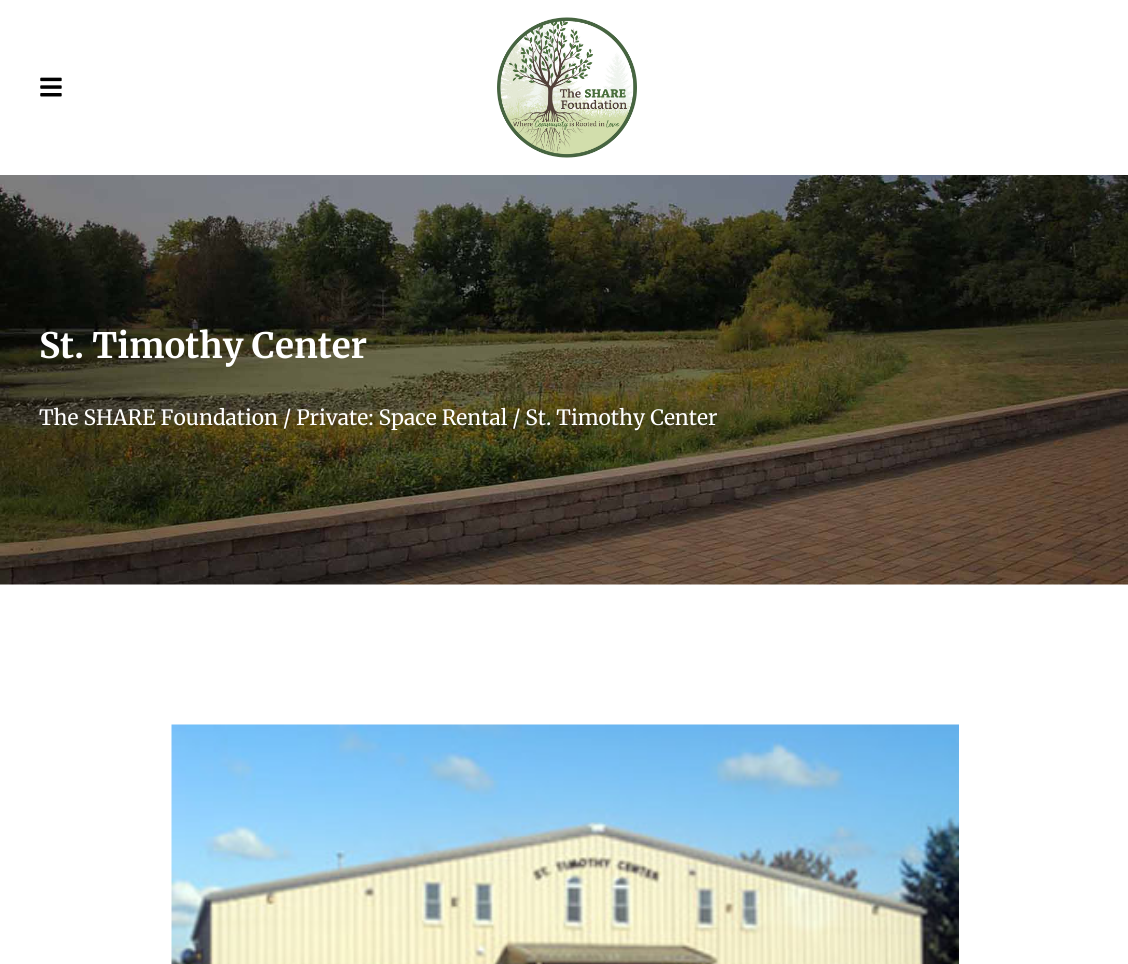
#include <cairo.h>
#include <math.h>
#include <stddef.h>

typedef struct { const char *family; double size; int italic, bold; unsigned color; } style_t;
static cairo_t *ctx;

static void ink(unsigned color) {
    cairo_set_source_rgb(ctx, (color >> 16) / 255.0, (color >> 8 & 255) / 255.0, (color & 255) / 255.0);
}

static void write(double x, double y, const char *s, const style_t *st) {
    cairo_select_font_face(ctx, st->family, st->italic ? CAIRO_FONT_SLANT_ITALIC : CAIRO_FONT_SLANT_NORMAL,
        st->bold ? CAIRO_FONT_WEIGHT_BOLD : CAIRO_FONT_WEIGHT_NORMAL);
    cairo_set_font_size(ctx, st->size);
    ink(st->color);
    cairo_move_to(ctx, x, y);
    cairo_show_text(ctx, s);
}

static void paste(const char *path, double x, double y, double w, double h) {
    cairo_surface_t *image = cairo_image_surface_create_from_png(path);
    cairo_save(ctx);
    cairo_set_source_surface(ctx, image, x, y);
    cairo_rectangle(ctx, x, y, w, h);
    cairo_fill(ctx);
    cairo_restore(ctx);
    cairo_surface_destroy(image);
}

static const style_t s1 = {"Merriweather", 35, 0, 1, 0xffffff};
static const style_t s2 = {"Merriweather", 21, 0, 0, 0xffffff};

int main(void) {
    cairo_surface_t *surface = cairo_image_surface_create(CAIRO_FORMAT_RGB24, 1128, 964);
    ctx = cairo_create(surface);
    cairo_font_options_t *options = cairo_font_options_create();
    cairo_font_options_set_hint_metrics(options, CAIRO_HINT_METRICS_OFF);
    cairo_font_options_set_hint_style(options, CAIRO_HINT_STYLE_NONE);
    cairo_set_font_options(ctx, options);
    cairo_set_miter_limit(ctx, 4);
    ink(0xffffff);
    cairo_paint(ctx);
    paste("pic1.png", 40, 77, 22, 20);
    paste("pic2.png", 497, 17, 140, 141);
    paste("pic3.png", 0, 175, 1128, 410);
    write(39, 358, "St. Timothy Center", &s1);
    write(39, 425, "The SHARE Foundation / Private: Space Rental / St. Timothy Center", &s2);
    paste("pic4.png", 171, 724, 788, 240);
    cairo_surface_write_to_png(surface, "screenshot.png");
    cairo_font_options_destroy(options);
    cairo_destroy(ctx);
    cairo_surface_destroy(surface);
    return 0;
}
